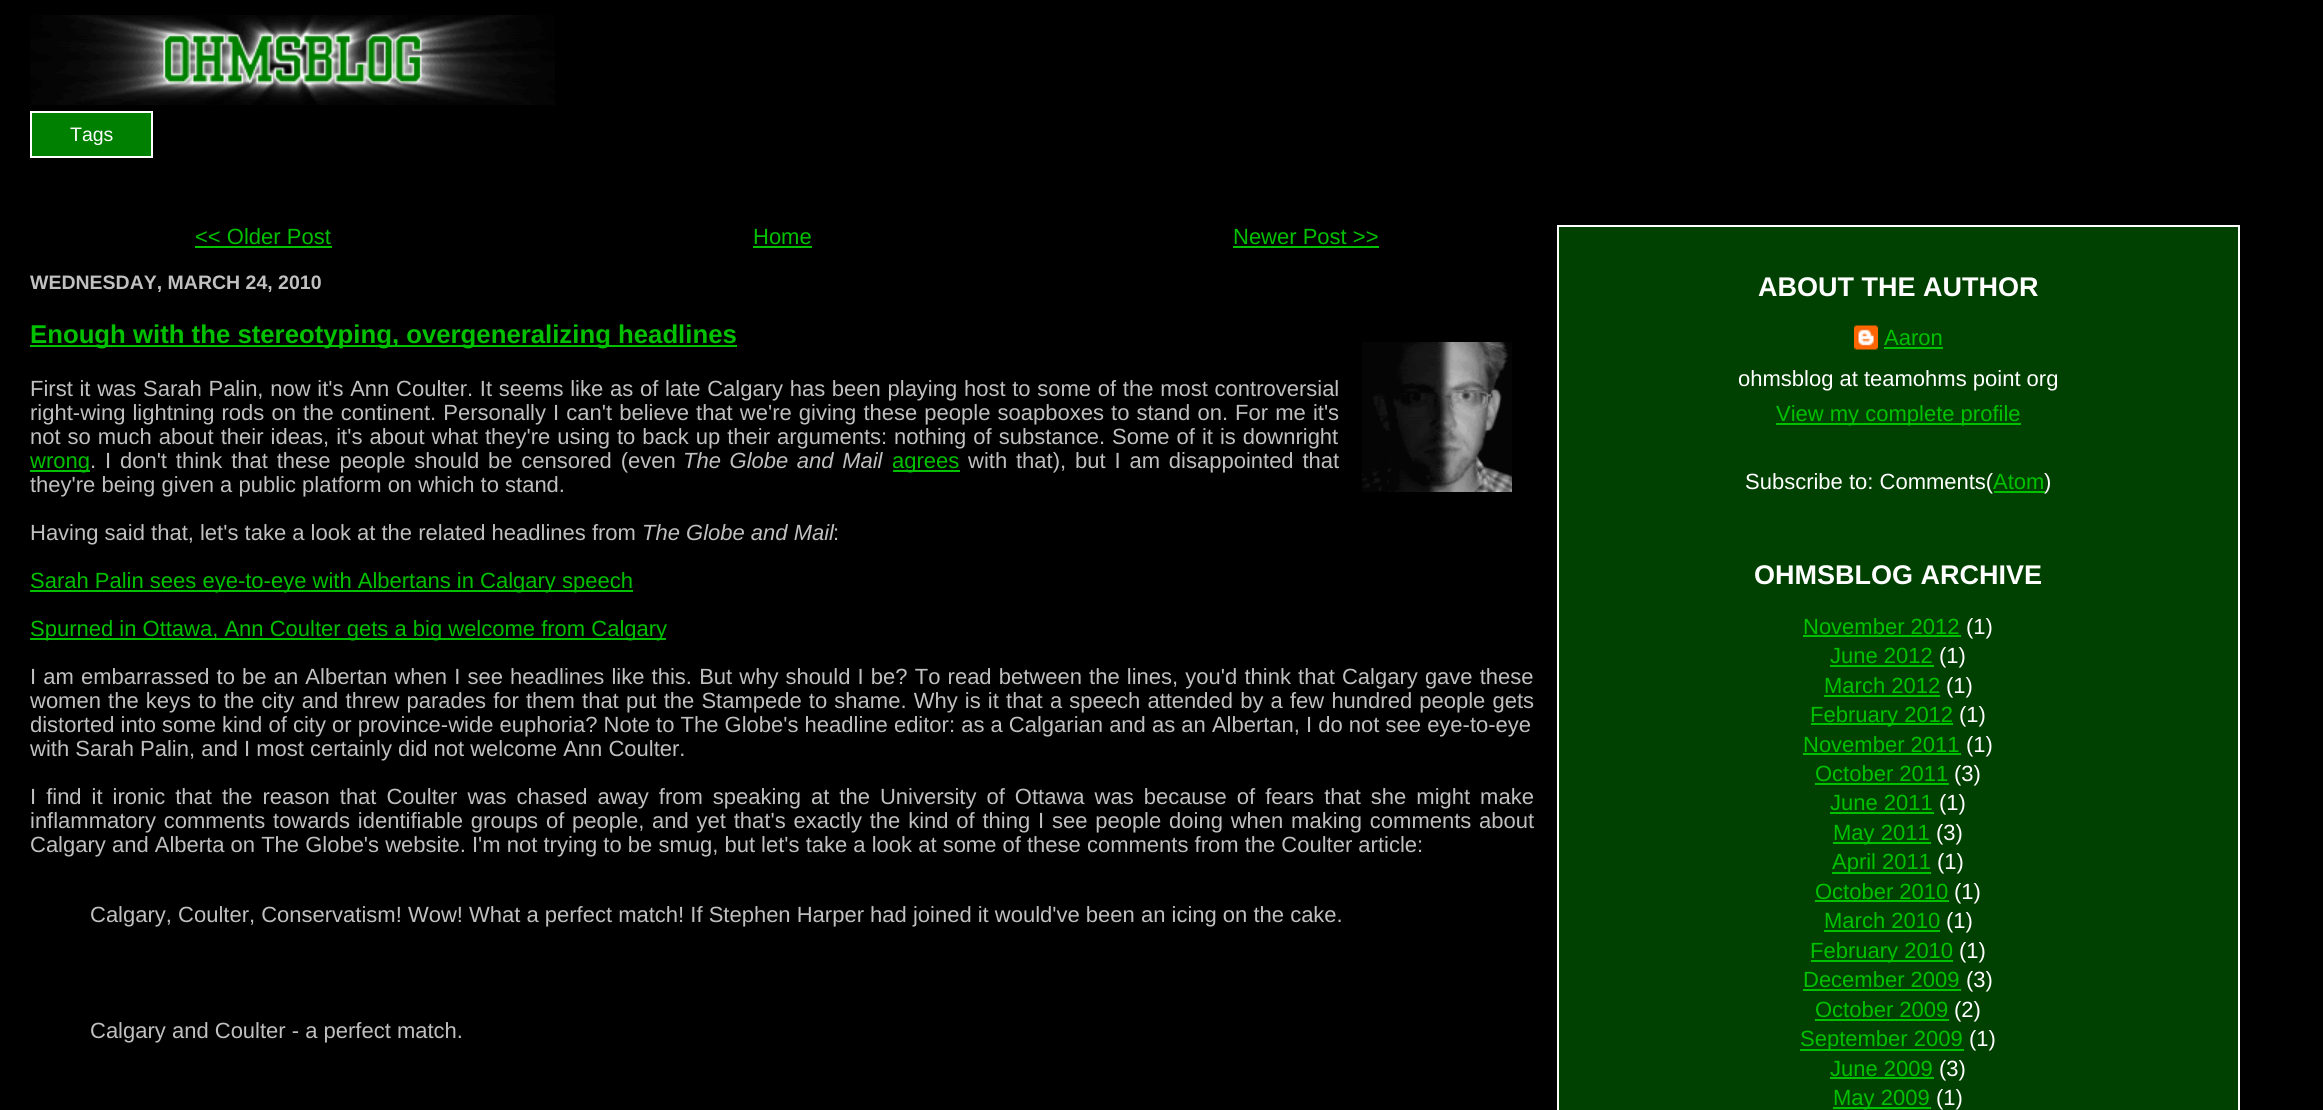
#include <cairo.h>
#include <math.h>
#include <stddef.h>

typedef struct { const char *family; double size; int italic, bold; unsigned color; } style_t;
static cairo_t *ctx;

static void ink(unsigned color) {
    cairo_set_source_rgb(ctx, (color >> 16) / 255.0, (color >> 8 & 255) / 255.0, (color & 255) / 255.0);
}

static void write(double x, double y, const char *s, const style_t *st) {
    cairo_select_font_face(ctx, st->family, st->italic ? CAIRO_FONT_SLANT_ITALIC : CAIRO_FONT_SLANT_NORMAL,
        st->bold ? CAIRO_FONT_WEIGHT_BOLD : CAIRO_FONT_WEIGHT_NORMAL);
    cairo_set_font_size(ctx, st->size);
    ink(st->color);
    cairo_move_to(ctx, x, y);
    cairo_show_text(ctx, s);
}

static void write_spaced(double x, double y, const char *s, double letter, double word) {
    cairo_move_to(ctx, x, y);
    while (*s) {
        char ch[5] = {0};
        int n = 0;
        do ch[n++] = *s++; while ((*s & 0xC0) == 0x80);
        cairo_show_text(ctx, ch);
        cairo_rel_move_to(ctx, letter + word * (*ch == ' '), 0);
    }
}

static void block(double x, double y, double w, double h, unsigned color) {
    ink(color);
    cairo_rectangle(ctx, x, y, w, h);
    cairo_fill(ctx);
}

static void paste(const char *path, double x, double y, double w, double h) {
    cairo_surface_t *image = cairo_image_surface_create_from_png(path);
    cairo_save(ctx);
    cairo_set_source_surface(ctx, image, x, y);
    cairo_rectangle(ctx, x, y, w, h);
    cairo_fill(ctx);
    cairo_restore(ctx);
    cairo_surface_destroy(image);
}

static const style_t s1 = {"Liberation Sans", 19.5, 0, 0, 0xffffff};
static const style_t s2 = {"Liberation Sans", 22, 0, 0, 0x00c000};
static const style_t s3 = {"Liberation Sans", 19.5, 0, 1, 0xc0c0c0};
static const style_t s4 = {"Liberation Sans", 25.75, 0, 1, 0x00c000};
static const style_t s5 = {"Liberation Sans", 22, 0, 0, 0xc0c0c0};
static const style_t s6 = {"Liberation Sans", 22, 1, 0, 0xc0c0c0};
static const style_t s7 = {"Liberation Sans", 27, 0, 1, 0xffffff};
static const style_t s8 = {"Liberation Sans", 22, 0, 0, 0xffffff};

int main(void) {
    cairo_surface_t *surface = cairo_image_surface_create(CAIRO_FORMAT_RGB24, 2323, 1110);
    ctx = cairo_create(surface);
    cairo_font_options_t *options = cairo_font_options_create();
    cairo_font_options_set_hint_metrics(options, CAIRO_HINT_METRICS_OFF);
    cairo_font_options_set_hint_style(options, CAIRO_HINT_STYLE_NONE);
    cairo_set_font_options(ctx, options);
    cairo_set_miter_limit(ctx, 4);
    ink(0x000000);
    cairo_paint(ctx);
    paste("pic1.png", 30, 15, 525, 90);
    ink(0x008000);
    cairo_rectangle(ctx, 31, 112, 121, 45);
    cairo_fill_preserve(ctx);
    ink(0xffffff);
    cairo_stroke(ctx);
    write(70, 141, "Tags", &s1);
    write(195, 244, "<< Older Post", &s2);
    block(195, 246, 137, 2, 0x00c000);
    write(753, 244, "Home", &s2);
    block(753, 246, 59, 2, 0x00c000);
    write(1233, 244, "Newer Post >>", &s2);
    block(1233, 246, 146, 2, 0x00c000);
    write(30, 289, "WEDNESDAY, MARCH 24, 2010", &s3);
    block(30, 345, 707, 2, 0x00c000);
    write(30, 343, "Enough with the stereotyping, overgeneralizing headlines", &s4);
    paste("pic2.png", 1362, 342, 150, 150);
    cairo_select_font_face(ctx, "Liberation Sans", CAIRO_FONT_SLANT_NORMAL, CAIRO_FONT_WEIGHT_NORMAL);
    cairo_set_font_size(ctx, 22);
    ink(0xc0c0c0);
    write_spaced(30, 396, "First it was Sarah Palin, now it's Ann Coulter. It seems like as of late Calgary has been playing host to some of the most controversial", 0, 0.6);
    write_spaced(30, 420, "right-wing lightning rods on the continent. Personally I can't believe that we're giving these people soapboxes to stand on. For me it's", 0, 1);
    write_spaced(30, 444, "not so much about their ideas, it's about what they're using to back up their arguments: nothing of substance. Some of it is downright", 0, 0.9);
    block(30, 470, 60, 2, 0x00c000);
    write(30, 468, "wrong", &s2);
    ink(0xc0c0c0);
    write_spaced(90, 468, ". I don't think that these people should be censored (even", 0, 2.75);
    cairo_select_font_face(ctx, "Liberation Sans", CAIRO_FONT_SLANT_ITALIC, CAIRO_FONT_WEIGHT_NORMAL);
    write_spaced(683, 468, "The Globe and Mail", 0, 2.5);
    block(893, 470, 67, 2, 0x00c000);
    write(892, 468, "agrees", &s2);
    ink(0xc0c0c0);
    write_spaced(968, 468, "with that), but I am disappointed that", 0, 2.75);
    write(30, 492, "they're being given a public platform on which to stand.", &s5);
    write(30, 540, "Having said that, let's take a look at the related headlines from", &s5);
    write(642, 540, "The Globe and Mail", &s6);
    write(833, 540, ":", &s5);
    block(30, 590, 603, 2, 0x00c000);
    write(30, 588, "Sarah Palin sees eye-to-eye with Albertans in Calgary speech", &s2);
    block(30, 638, 636, 2, 0x00c000);
    write(30, 636, "Spurned in Ottawa, Ann Coulter gets a big welcome from Calgary", &s2);
    ink(0xc0c0c0);
    write_spaced(30, 684, "I am embarrassed to be an Albertan when I see headlines like this. But why should I be? To read between the lines, you'd think that Calgary gave these", 0, 1.05);
    write_spaced(30, 708, "women the keys to the city and threw parades for them that put the Stampede to shame. Why is it that a speech attended by a few hundred people gets", 0, 1.05);
    write(30, 732, "distorted into some kind of city or province-wide euphoria? Note to The Globe's headline editor: as a Calgarian and as an Albertan, I do not see eye-to-eye", &s5);
    write(30, 756, "with Sarah Palin, and I most certainly did not welcome Ann Coulter.", &s5);
    write_spaced(30, 804, "I find it ironic that the reason that Coulter was chased away from speaking at the University of Ottawa was because of fears that she might make", 0, 3.9);
    write_spaced(30, 828, "inflammatory comments towards identifiable groups of people, and yet that's exactly the kind of thing I see people doing when making comments about", 0, 1.7);
    write(30, 852, "Calgary and Alberta on The Globe's website. I'm not trying to be smug, but let's take a look at some of these comments from the Coulter article:", &s5);
    write(90, 922, "Calgary, Coulter, Conservatism! Wow! What a perfect match! If Stephen Harper had joined it would've been an icing on the cake.", &s5);
    write(90, 1038, "Calgary and Coulter - a perfect match.", &s5);
    ink(0x004000);
    cairo_rectangle(ctx, 1558, 226, 681, 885);
    cairo_fill_preserve(ctx);
    ink(0xffffff);
    cairo_stroke(ctx);
    write(1758, 296, "ABOUT THE AUTHOR", &s7);
    paste("pic3.png", 1854, 325, 24, 25);
    write(1884, 345, "Aaron", &s2);
    block(1884, 347, 59, 2, 0x00c000);
    write(1738, 386, "ohmsblog at teamohms point org", &s8);
    block(1776, 423, 245, 2, 0x00c000);
    write(1776, 421, "View my complete profile", &s2);
    write(1745, 489, "Subscribe to: Comments(", &s8);
    write(1993, 489, "Atom", &s2);
    block(1994, 491, 51, 2, 0x00c000);
    write(2044, 489, ")", &s8);
    write(1754, 584, "OHMSBLOG ARCHIVE", &s7);
    write(1803, 634, "November 2012", &s2);
    block(1803, 635, 158, 2, 0x00c000);
    write(1966, 634, "(1)", &s8);
    write(1830, 663, "June 2012", &s2);
    block(1830, 665, 104, 2, 0x00c000);
    write(1939, 663, "(1)", &s8);
    write(1824, 693, "March 2012", &s2);
    block(1824, 695, 116, 2, 0x00c000);
    write(1946, 693, "(1)", &s8);
    block(1811, 723, 142, 2, 0x00c000);
    write(1810, 722, "February 2012", &s2);
    write(1959, 722, "(1)", &s8);
    write(1803, 752, "November 2011", &s2);
    block(1803, 753, 158, 2, 0x00c000);
    write(1966, 752, "(1)", &s8);
    write(1815, 781, "October 2011", &s2);
    block(1815, 783, 134, 2, 0x00c000);
    write(1954, 781, "(3)", &s8);
    write(1830, 810, "June 2011", &s2);
    block(1830, 812, 104, 2, 0x00c000);
    write(1939, 810, "(1)", &s8);
    block(1833, 842, 98, 2, 0x00c000);
    write(1833, 840, "May 2011", &s2);
    write(1936, 840, "(3)", &s8);
    block(1832, 872, 99, 2, 0x00c000);
    write(1832, 869, "April 2011", &s2);
    write(1937, 869, "(1)", &s8);
    write(1815, 899, "October 2010", &s2);
    block(1815, 900, 134, 2, 0x00c000);
    write(1954, 899, "(1)", &s8);
    write(1824, 928, "March 2010", &s2);
    block(1824, 930, 116, 2, 0x00c000);
    write(1946, 928, "(1)", &s8);
    block(1811, 960, 142, 2, 0x00c000);
    write(1810, 958, "February 2010", &s2);
    write(1959, 958, "(1)", &s8);
    write(1803, 987, "December 2009", &s2);
    block(1803, 989, 158, 2, 0x00c000);
    write(1966, 987, "(3)", &s8);
    write(1815, 1017, "October 2009", &s2);
    block(1815, 1019, 134, 2, 0x00c000);
    write(1954, 1017, "(2)", &s8);
    block(1800, 1049, 164, 2, 0x00c000);
    write(1800, 1046, "September 2009", &s2);
    write(1969, 1046, "(1)", &s8);
    write(1830, 1076, "June 2009", &s2);
    block(1830, 1077, 104, 2, 0x00c000);
    write(1939, 1076, "(3)", &s8);
    block(1833, 1107, 98, 2, 0x00c000);
    write(1833, 1105, "May 2009", &s2);
    write(1936, 1105, "(1)", &s8);
    cairo_surface_write_to_png(surface, "screenshot.png");
    cairo_font_options_destroy(options);
    cairo_destroy(ctx);
    cairo_surface_destroy(surface);
    return 0;
}
